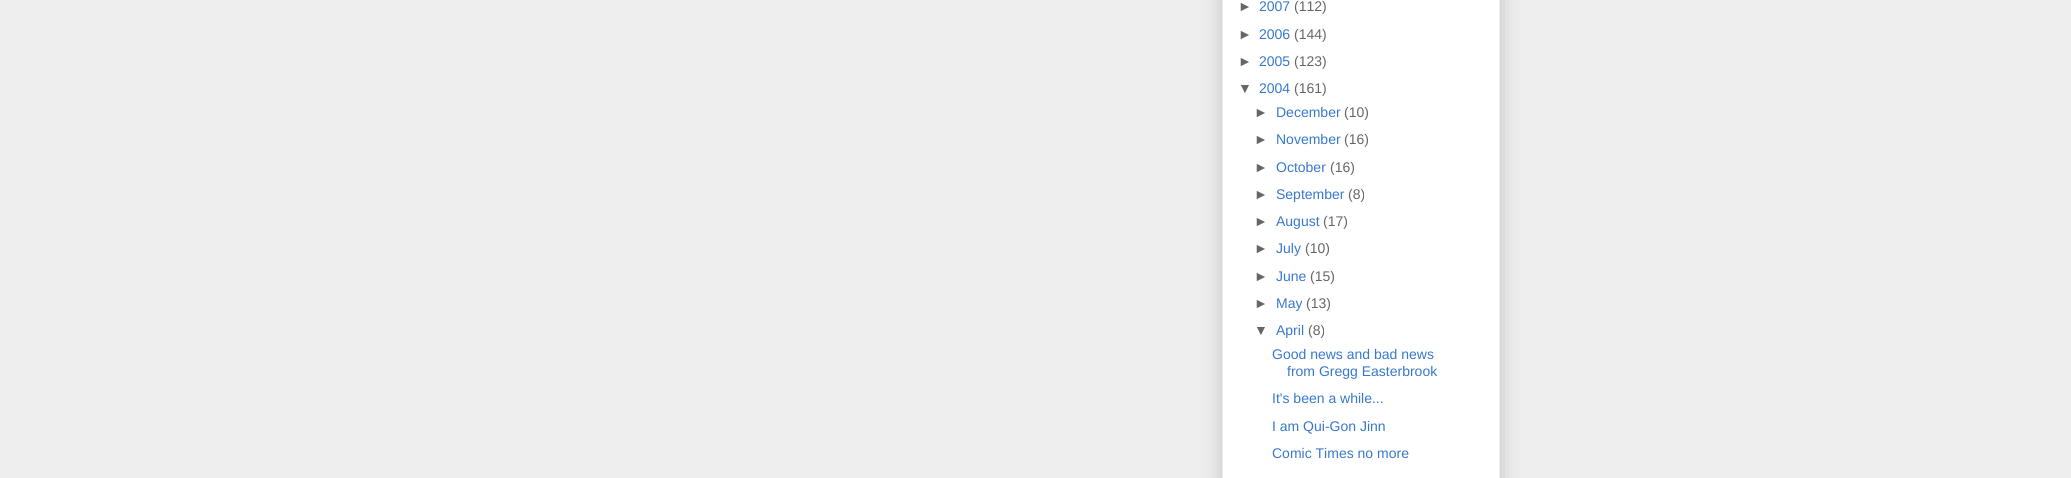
#include <cairo.h>
#include <math.h>
#include <stddef.h>

typedef struct { const char *family; double size; int italic, bold; unsigned color; } style_t;
static cairo_t *ctx;

static void ink(unsigned color) {
    cairo_set_source_rgb(ctx, (color >> 16) / 255.0, (color >> 8 & 255) / 255.0, (color & 255) / 255.0);
}

static void write(double x, double y, const char *s, const style_t *st) {
    cairo_select_font_face(ctx, st->family, st->italic ? CAIRO_FONT_SLANT_ITALIC : CAIRO_FONT_SLANT_NORMAL,
        st->bold ? CAIRO_FONT_WEIGHT_BOLD : CAIRO_FONT_WEIGHT_NORMAL);
    cairo_set_font_size(ctx, st->size);
    ink(st->color);
    cairo_move_to(ctx, x, y);
    cairo_show_text(ctx, s);
}

static void round_path(double x, double y, double w, double h, double r) {
    cairo_new_sub_path(ctx);
    cairo_arc(ctx, x + w - r, y + h - r, r, 0, M_PI / 2);
    cairo_arc(ctx, x + r, y + h - r, r, M_PI / 2, M_PI);
    cairo_arc(ctx, x + r, y + r, r, M_PI, 1.5 * M_PI);
    cairo_arc(ctx, x + w - r, y + r, r, 1.5 * M_PI, 2 * M_PI);
    cairo_close_path(ctx);
}

static void blur_box(double x, double y, double w, double h, double r, double blur, double alpha) {
    cairo_push_group_with_content(ctx, CAIRO_CONTENT_ALPHA);
    cairo_set_operator(ctx, CAIRO_OPERATOR_SOURCE);
    for (int i = 15; i >= -15 && fmin(w, h) + blur * i / 3 > 0; i -= 2) {
        double e = blur * i / 6;
        cairo_set_source_rgba(ctx, 0, 0, 0, alpha * erfc((i - 1) / 8.5) / 2);
        round_path(x - e, y - e, w + 2 * e, h + 2 * e, fmax(0, fmin(r + e + blur * .6, fmin(w, h) / 2 + e)));
        cairo_fill(ctx);
    }
    cairo_pattern_t *soft = cairo_pop_group(ctx);
    cairo_mask(ctx, soft);
    cairo_pattern_destroy(soft);
}

static const style_t s1 = {"Liberation Sans", 14, 0, 0, 0x666666};
static const style_t s2 = {"Liberation Sans", 14, 0, 0, 0x3778cd};

int main(void) {
    cairo_surface_t *surface = cairo_image_surface_create(CAIRO_FORMAT_RGB24, 2071, 478);
    ctx = cairo_create(surface);
    cairo_font_options_t *options = cairo_font_options_create();
    cairo_font_options_set_hint_metrics(options, CAIRO_HINT_METRICS_OFF);
    cairo_font_options_set_hint_style(options, CAIRO_HINT_STYLE_NONE);
    cairo_set_font_options(ctx, options);
    cairo_set_miter_limit(ctx, 4);
    ink(0xeeeeee);
    cairo_paint(ctx);
    ink(0x000000);
    blur_box(1222, -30, 278, 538, 0, 10, 0.2);
    ink(0xffffff);
    cairo_rectangle(ctx, 1222.5, -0.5, 277, 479);
    cairo_fill_preserve(ctx);
    ink(0xeeeeee);
    cairo_set_line_width(ctx, 1);
    cairo_stroke(ctx);
    write(1238, 11, "►", &s1);
    write(1259, 11, "2007", &s2);
    write(1294, 11, "(112)", &s1);
    write(1238, 39, "►", &s1);
    write(1259, 39, "2006", &s2);
    write(1294, 39, "(144)", &s1);
    write(1238, 66, "►", &s1);
    write(1259, 66, "2005", &s2);
    write(1294, 66, "(123)", &s1);
    write(1238, 93, "▼", &s1);
    write(1259, 93, "2004", &s2);
    write(1294, 93, "(161)", &s1);
    write(1254, 117, "►", &s1);
    write(1276, 117, "December", &s2);
    write(1344, 117, "(10)", &s1);
    write(1254, 144, "►", &s1);
    write(1276, 144, "November", &s2);
    write(1344, 144, "(16)", &s1);
    write(1254, 172, "►", &s1);
    write(1276, 172, "October", &s2);
    write(1330, 172, "(16)", &s1);
    write(1254, 199, "►", &s1);
    write(1276, 199, "September", &s2);
    write(1348, 199, "(8)", &s1);
    write(1254, 226, "►", &s1);
    write(1276, 226, "August", &s2);
    write(1323, 226, "(17)", &s1);
    write(1254, 253, "►", &s1);
    write(1276, 253, "July", &s2);
    write(1305, 253, "(10)", &s1);
    write(1254, 281, "►", &s1);
    write(1276, 281, "June", &s2);
    write(1310, 281, "(15)", &s1);
    write(1254, 308, "►", &s1);
    write(1276, 308, "May", &s2);
    write(1306, 308, "(13)", &s1);
    write(1254, 335, "▼", &s1);
    write(1276, 335, "April", &s2);
    write(1308, 335, "(8)", &s1);
    write(1272, 359, "Good news and bad news", &s2);
    write(1287, 376, "from Gregg Easterbrook", &s2);
    write(1272, 403, "It's been a while...", &s2);
    write(1272, 431, "I am Qui-Gon Jinn", &s2);
    write(1272, 458, "Comic Times no more", &s2);
    cairo_surface_write_to_png(surface, "screenshot.png");
    cairo_font_options_destroy(options);
    cairo_destroy(ctx);
    cairo_surface_destroy(surface);
    return 0;
}
